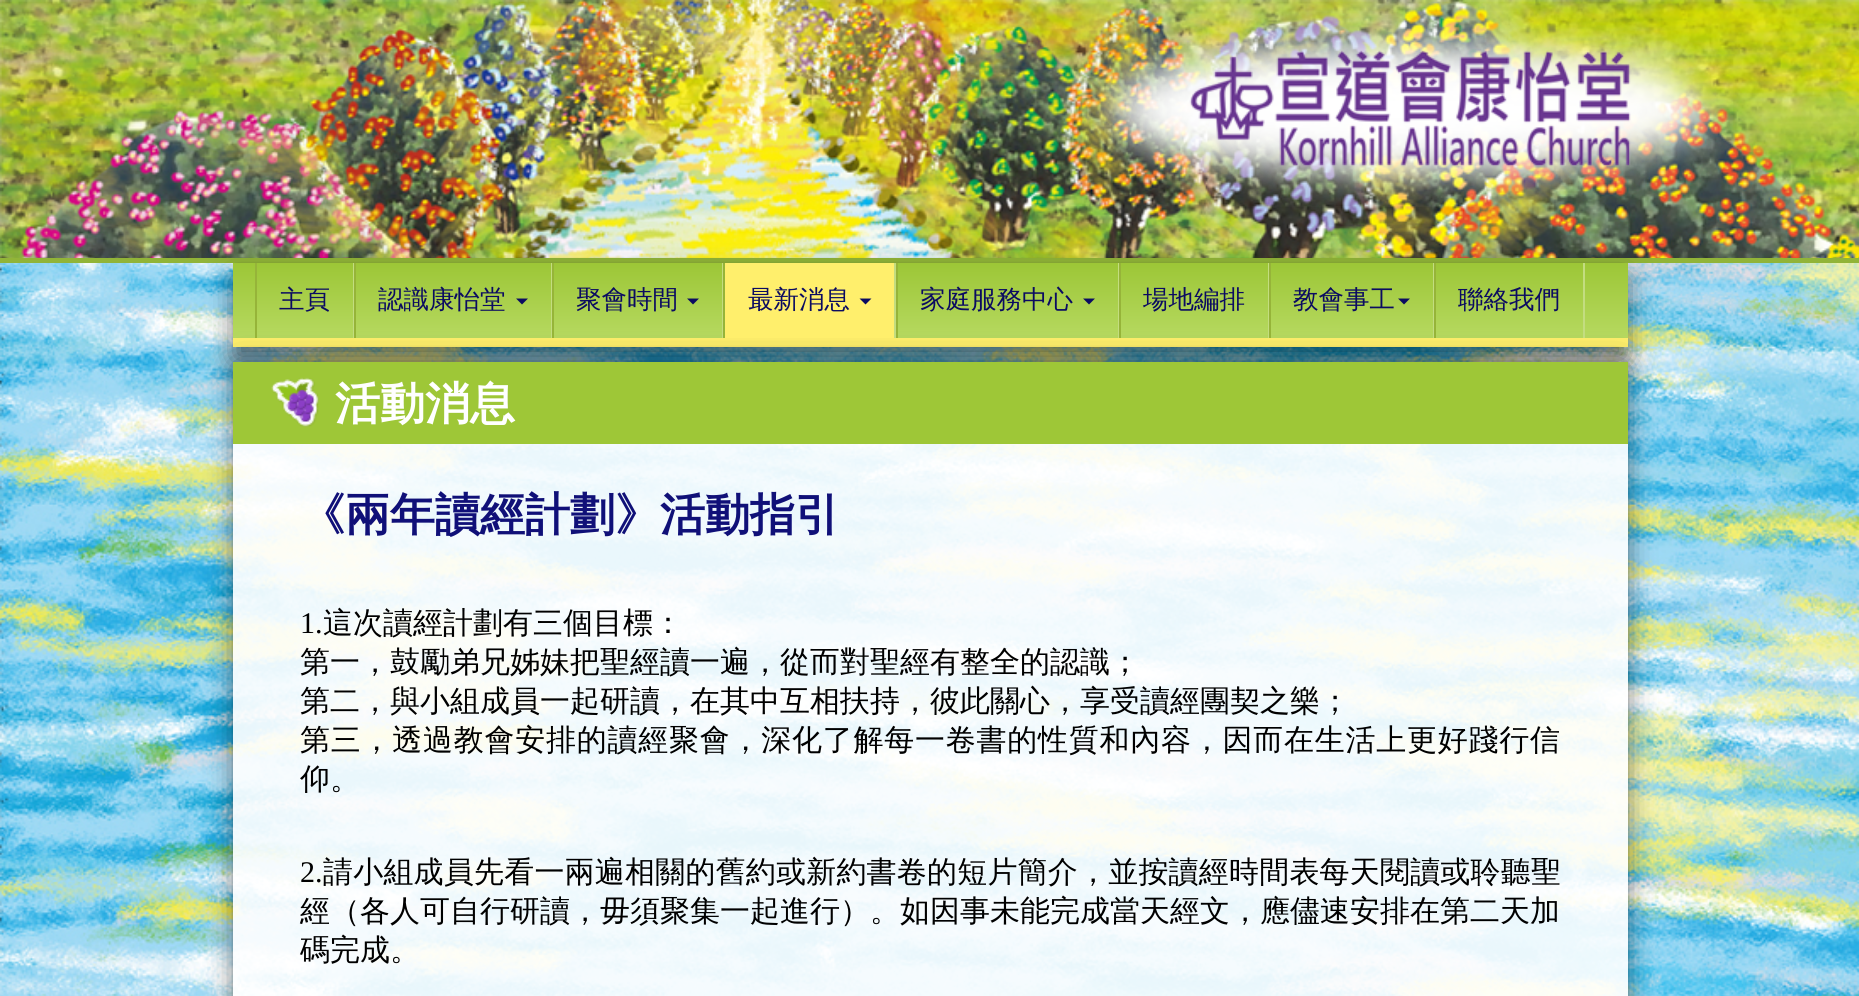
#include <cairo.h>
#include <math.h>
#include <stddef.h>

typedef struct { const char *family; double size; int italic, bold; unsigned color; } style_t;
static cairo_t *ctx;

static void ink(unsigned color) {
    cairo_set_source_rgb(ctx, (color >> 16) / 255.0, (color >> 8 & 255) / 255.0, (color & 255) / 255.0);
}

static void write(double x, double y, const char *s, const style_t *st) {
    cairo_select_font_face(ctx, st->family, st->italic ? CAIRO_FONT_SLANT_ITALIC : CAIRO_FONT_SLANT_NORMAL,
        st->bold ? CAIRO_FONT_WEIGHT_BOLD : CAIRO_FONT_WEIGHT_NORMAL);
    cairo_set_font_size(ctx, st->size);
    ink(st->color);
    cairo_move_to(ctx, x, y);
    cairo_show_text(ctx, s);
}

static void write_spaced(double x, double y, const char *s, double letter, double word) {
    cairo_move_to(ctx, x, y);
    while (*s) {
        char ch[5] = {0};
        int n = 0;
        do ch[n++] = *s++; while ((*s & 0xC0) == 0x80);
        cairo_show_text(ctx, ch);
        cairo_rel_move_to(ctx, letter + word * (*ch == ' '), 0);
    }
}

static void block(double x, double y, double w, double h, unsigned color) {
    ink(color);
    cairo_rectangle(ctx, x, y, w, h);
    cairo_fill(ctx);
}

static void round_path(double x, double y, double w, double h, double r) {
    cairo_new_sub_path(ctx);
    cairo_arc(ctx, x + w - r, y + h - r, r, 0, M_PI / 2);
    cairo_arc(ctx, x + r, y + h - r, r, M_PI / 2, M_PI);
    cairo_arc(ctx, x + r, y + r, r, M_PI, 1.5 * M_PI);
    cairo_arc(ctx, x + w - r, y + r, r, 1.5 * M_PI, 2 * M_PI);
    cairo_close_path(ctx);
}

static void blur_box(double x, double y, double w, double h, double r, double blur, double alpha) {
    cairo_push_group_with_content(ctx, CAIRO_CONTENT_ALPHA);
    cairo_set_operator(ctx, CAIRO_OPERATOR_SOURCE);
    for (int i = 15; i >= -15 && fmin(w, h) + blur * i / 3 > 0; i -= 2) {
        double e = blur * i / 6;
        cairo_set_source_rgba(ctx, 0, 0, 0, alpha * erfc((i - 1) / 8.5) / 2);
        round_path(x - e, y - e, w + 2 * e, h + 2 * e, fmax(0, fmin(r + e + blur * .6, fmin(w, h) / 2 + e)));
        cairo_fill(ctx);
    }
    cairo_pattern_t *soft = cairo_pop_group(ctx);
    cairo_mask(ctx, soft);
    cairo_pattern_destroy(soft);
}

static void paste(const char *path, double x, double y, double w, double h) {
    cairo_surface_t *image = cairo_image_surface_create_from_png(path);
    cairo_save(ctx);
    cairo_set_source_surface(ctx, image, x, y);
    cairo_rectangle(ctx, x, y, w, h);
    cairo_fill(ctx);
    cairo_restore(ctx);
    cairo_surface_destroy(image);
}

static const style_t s1 = {"WenQuanYi Zen Hei Medium", 25.5, 0, 0, 0x0b0b61};
static const style_t s2 = {"WenQuanYi Zen Hei", 45, 0, 1, 0xffffff};
static const style_t s3 = {"WenQuanYi Zen Hei", 45, 0, 1, 0x101078};
static const style_t s4 = {"Liberation Serif", 30, 0, 0, 0x000000};
static const style_t s5 = {"WenQuanYi Zen Hei Medium", 30, 0, 0, 0x000000};

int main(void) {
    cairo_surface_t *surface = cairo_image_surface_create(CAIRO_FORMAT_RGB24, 1859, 996);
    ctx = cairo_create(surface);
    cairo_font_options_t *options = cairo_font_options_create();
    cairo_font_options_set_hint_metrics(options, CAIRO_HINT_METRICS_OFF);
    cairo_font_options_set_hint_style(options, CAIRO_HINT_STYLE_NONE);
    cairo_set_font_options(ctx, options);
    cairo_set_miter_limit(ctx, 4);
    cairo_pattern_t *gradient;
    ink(0xffffff);
    cairo_paint(ctx);
    paste("pic1.png", 0, 263, 1859, 733);
    paste("pic2.png", 0, 0, 1859, 258);
    block(0, 258, 1859, 5, 0x91b438);
    paste("pic3.png", 1082, 11, 651, 196);
    ink(0x000000);
    blur_box(234, 278, 1392, 81, 0, 14, 0.55);
    gradient = cairo_pattern_create_linear(930, 262, 930, 338);
    cairo_pattern_add_color_stop_rgba(gradient, 0, 0.612, 0.776, 0.212, 1);
    cairo_pattern_add_color_stop_rgba(gradient, 1, 0.714, 0.851, 0.376, 1);
    cairo_set_source(ctx, gradient);
    cairo_pattern_destroy(gradient);
    cairo_rectangle(ctx, 233, 263, 1395, 75);
    cairo_fill(ctx);
    block(233, 338, 1395, 9, 0xffef6c);
    cairo_save(ctx);
    cairo_set_fill_rule(ctx, CAIRO_FILL_RULE_EVEN_ODD);
    cairo_new_path(ctx);
    cairo_move_to(ctx, 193, 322);
    cairo_line_to(ctx, 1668, 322);
    cairo_line_to(ctx, 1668, 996);
    cairo_line_to(ctx, 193, 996);
    cairo_close_path(ctx);
    cairo_move_to(ctx, 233, 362);
    cairo_line_to(ctx, 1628, 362);
    cairo_line_to(ctx, 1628, 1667);
    cairo_line_to(ctx, 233, 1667);
    cairo_close_path(ctx);
    cairo_clip(ctx);
    ink(0x000000);
    blur_box(239, 368, 1383, 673, 0, 15, 0.75);
    cairo_restore(ctx);
    block(353, 263, 1, 75, 0xc3dd80);
    block(255, 263, 2, 75, 0x96b439);
    write(279, 308, "主頁", &s1);
    block(551, 263, 1, 75, 0xc3dd80);
    block(354, 263, 2, 75, 0x96b439);
    write(378, 308, "認識康怡堂", &s1);
    cairo_new_path(ctx);
    cairo_move_to(ctx, 516, 298.5);
    cairo_line_to(ctx, 528, 298.5);
    cairo_line_to(ctx, 522, 304.5);
    cairo_close_path(ctx);
    cairo_fill(ctx);
    block(722, 263, 1, 75, 0xc3dd80);
    block(552, 263, 2, 75, 0x96b439);
    write(576, 308, "聚會時間", &s1);
    cairo_new_path(ctx);
    cairo_move_to(ctx, 687, 298.5);
    cairo_line_to(ctx, 699, 298.5);
    cairo_line_to(ctx, 693, 304.5);
    cairo_close_path(ctx);
    cairo_fill(ctx);
    block(725, 263, 169, 75, 0xffef6c);
    block(894, 263, 2, 75, 0xc3dd80);
    block(723, 263, 2, 75, 0x96b439);
    write(748, 308, "最新消息", &s1);
    cairo_new_path(ctx);
    cairo_move_to(ctx, 859.5, 298.5);
    cairo_line_to(ctx, 871.5, 298.5);
    cairo_line_to(ctx, 865.5, 304.5);
    cairo_close_path(ctx);
    cairo_fill(ctx);
    block(1118, 263, 1, 75, 0xc3dd80);
    block(896, 263, 2, 75, 0x96b439);
    write(920, 308, "家庭服務中心", &s1);
    cairo_new_path(ctx);
    cairo_move_to(ctx, 1083, 298.5);
    cairo_line_to(ctx, 1095, 298.5);
    cairo_line_to(ctx, 1089, 304.5);
    cairo_close_path(ctx);
    cairo_fill(ctx);
    block(1268, 263, 1, 75, 0xc3dd80);
    block(1119, 263, 2, 75, 0x96b439);
    write(1143, 308, "場地編排", &s1);
    block(1433, 263, 1, 75, 0xc3dd80);
    block(1269, 263, 2, 75, 0x96b439);
    write(1293, 308, "教會事工", &s1);
    cairo_new_path(ctx);
    cairo_move_to(ctx, 1398, 298.5);
    cairo_line_to(ctx, 1410, 298.5);
    cairo_line_to(ctx, 1404, 304.5);
    cairo_close_path(ctx);
    cairo_fill(ctx);
    block(1583, 263, 2, 75, 0xc3dd80);
    block(1434, 263, 2, 75, 0x96b439);
    write(1458, 308, "聯絡我們", &s1);
    block(233, 362, 1395, 82, 0x9ec737);
    paste("pic4.png", 271, 377, 48, 50);
    write(335, 419, "活動消息", &s2);
    cairo_set_source_rgba(ctx, 1, 1, 1, 0.9);
    cairo_rectangle(ctx, 233, 444, 1395, 552);
    cairo_fill(ctx);
    write(300, 530, "《兩年讀經計劃》活動指引", &s3);
    write(300, 633, "1.", &s4);
    write(323, 633, "這次讀經計劃有三個目標：", &s5);
    write(300, 672, "第一，鼓勵弟兄姊妹把聖經讀一遍，從而對聖經有整全的認識；", &s5);
    write(300, 711, "第二，與小組成員一起研讀，在其中互相扶持，彼此關心，享受讀經團契之樂；", &s5);
    write_spaced(300, 750, "第三，透過教會安排的讀經聚會，深化了解每一卷書的性質和內容，因而在生活上更好踐行信", 0.75, 0);
    write(300, 789, "仰。", &s5);
    write(300, 882, "2.", &s4);
    cairo_select_font_face(ctx, "WenQuanYi Zen Hei Medium", CAIRO_FONT_SLANT_NORMAL, CAIRO_FONT_WEIGHT_NORMAL);
    write_spaced(323, 882, "請小組成員先看一兩遍相關的舊約或新約書卷的短片簡介，並按讀經時間表每天閱讀或聆聽聖", 0.2, 0);
    write(300, 921, "經（各人可自行研讀，毋須聚集一起進行）。如因事未能完成當天經文，應儘速安排在第二天加", &s5);
    write(300, 960, "碼完成。", &s5);
    cairo_surface_write_to_png(surface, "screenshot.png");
    cairo_font_options_destroy(options);
    cairo_destroy(ctx);
    cairo_surface_destroy(surface);
    return 0;
}
